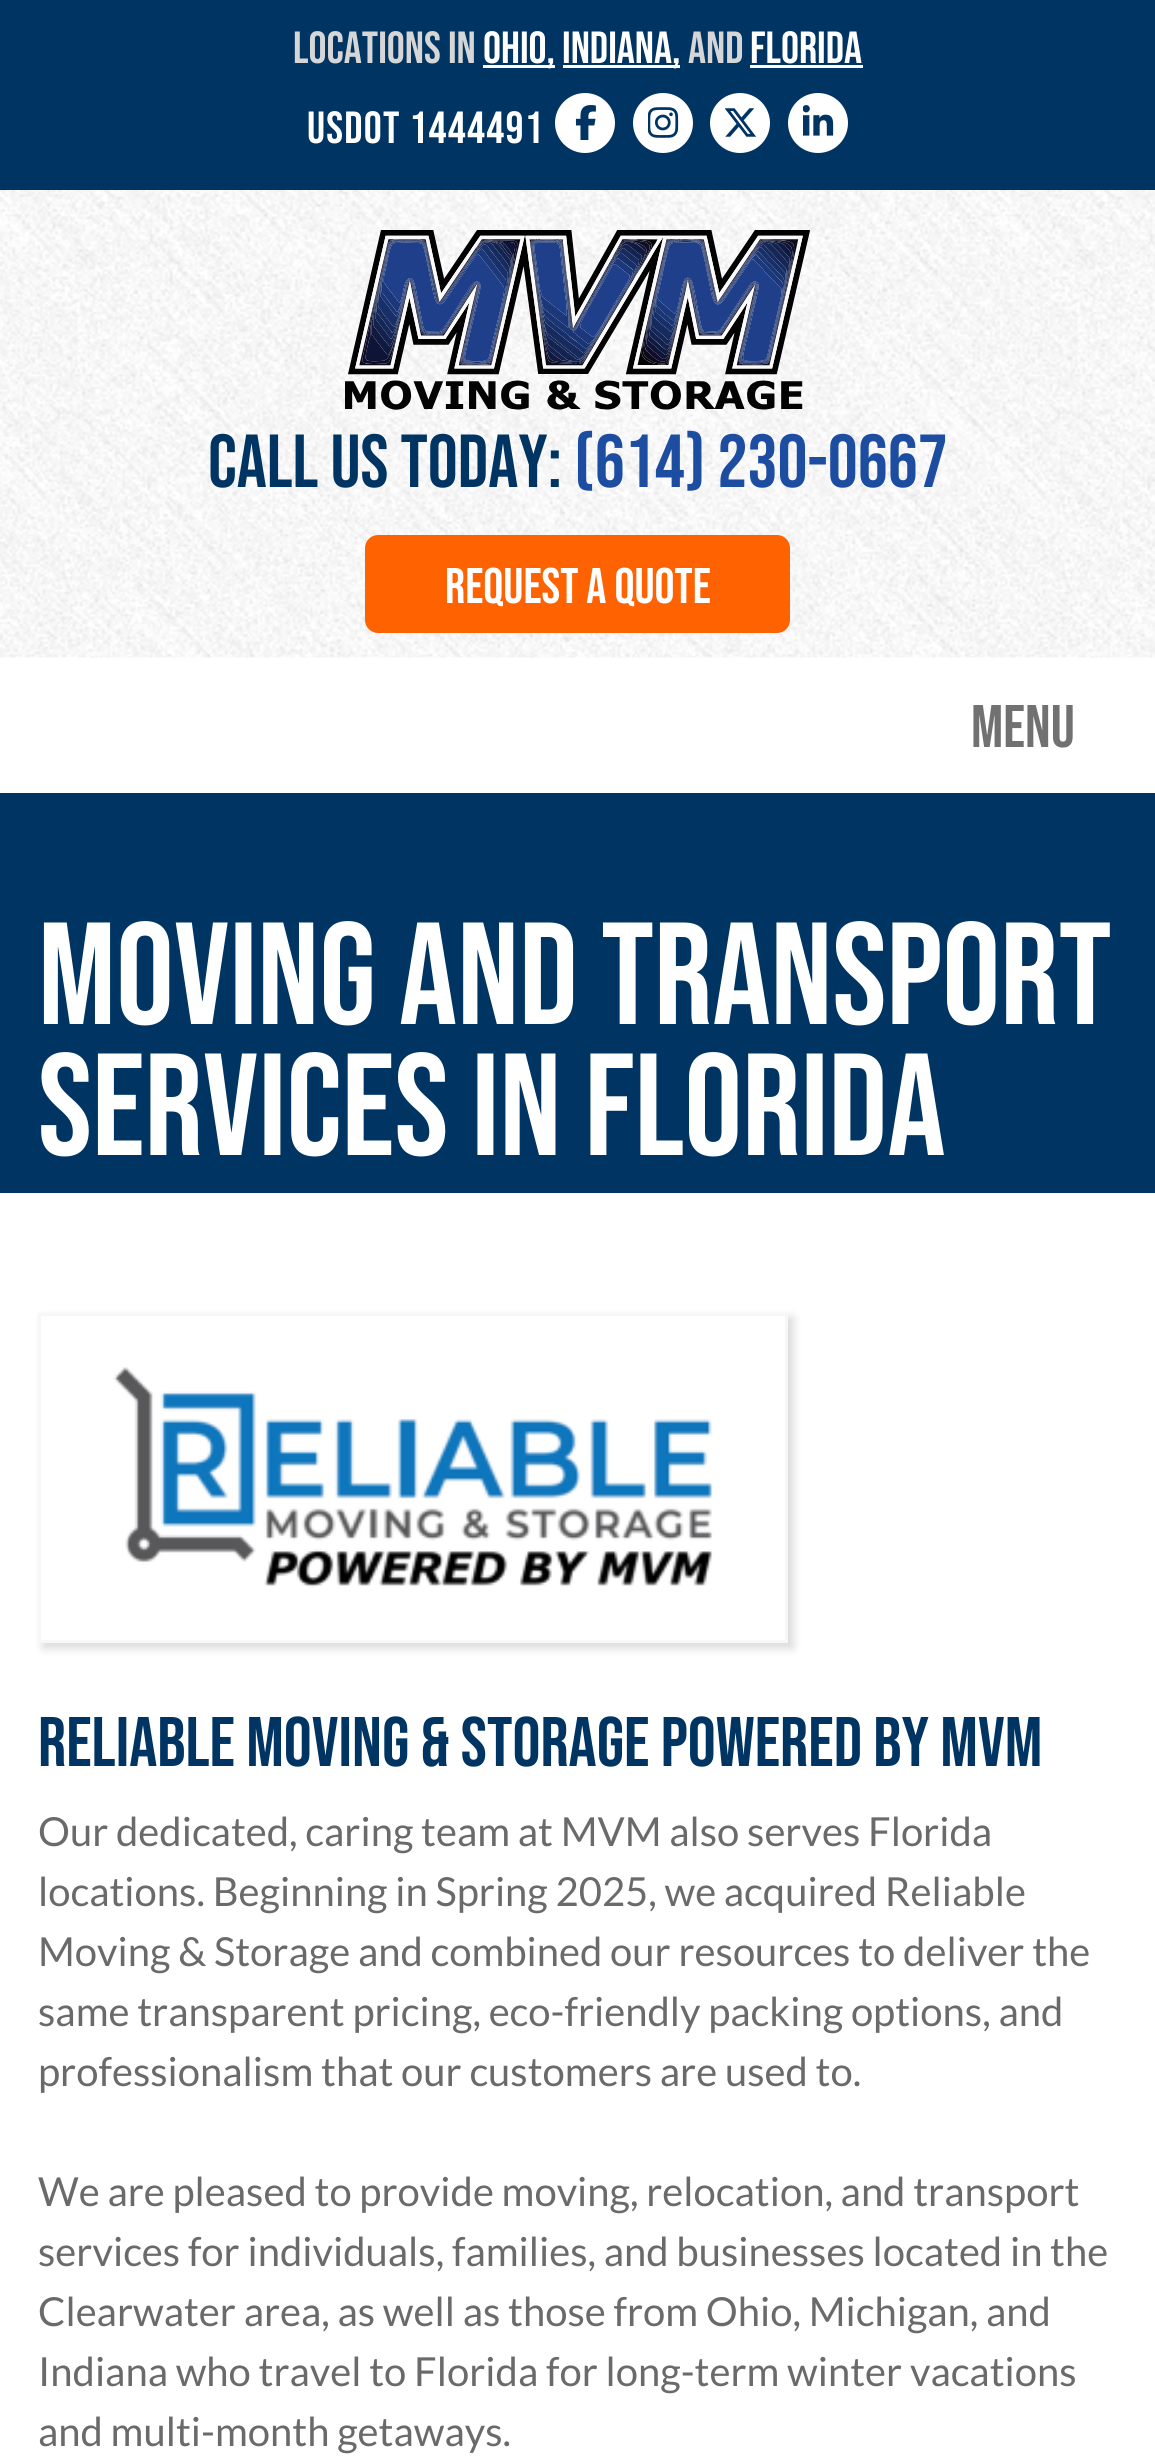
#include <cairo.h>
#include <math.h>
#include <stddef.h>

typedef struct { const char *family; double size; int italic, bold; unsigned color; } style_t;
static cairo_t *ctx;

static void ink(unsigned color) {
    cairo_set_source_rgb(ctx, (color >> 16) / 255.0, (color >> 8 & 255) / 255.0, (color & 255) / 255.0);
}

static void write(double x, double y, const char *s, const style_t *st) {
    cairo_select_font_face(ctx, st->family, st->italic ? CAIRO_FONT_SLANT_ITALIC : CAIRO_FONT_SLANT_NORMAL,
        st->bold ? CAIRO_FONT_WEIGHT_BOLD : CAIRO_FONT_WEIGHT_NORMAL);
    cairo_set_font_size(ctx, st->size);
    ink(st->color);
    cairo_move_to(ctx, x, y);
    cairo_show_text(ctx, s);
}

static void write_spaced(double x, double y, const char *s, double letter, double word) {
    cairo_move_to(ctx, x, y);
    while (*s) {
        char ch[5] = {0};
        int n = 0;
        do ch[n++] = *s++; while ((*s & 0xC0) == 0x80);
        cairo_show_text(ctx, ch);
        cairo_rel_move_to(ctx, letter + word * (*ch == ' '), 0);
    }
}

static void block(double x, double y, double w, double h, unsigned color) {
    ink(color);
    cairo_rectangle(ctx, x, y, w, h);
    cairo_fill(ctx);
}

static void round_path(double x, double y, double w, double h, double r) {
    cairo_new_sub_path(ctx);
    cairo_arc(ctx, x + w - r, y + h - r, r, 0, M_PI / 2);
    cairo_arc(ctx, x + r, y + h - r, r, M_PI / 2, M_PI);
    cairo_arc(ctx, x + r, y + r, r, M_PI, 1.5 * M_PI);
    cairo_arc(ctx, x + w - r, y + r, r, 1.5 * M_PI, 2 * M_PI);
    cairo_close_path(ctx);
}

static void blur_box(double x, double y, double w, double h, double r, double blur, double alpha) {
    cairo_push_group_with_content(ctx, CAIRO_CONTENT_ALPHA);
    cairo_set_operator(ctx, CAIRO_OPERATOR_SOURCE);
    for (int i = 15; i >= -15 && fmin(w, h) + blur * i / 3 > 0; i -= 2) {
        double e = blur * i / 6;
        cairo_set_source_rgba(ctx, 0, 0, 0, alpha * erfc((i - 1) / 8.5) / 2);
        round_path(x - e, y - e, w + 2 * e, h + 2 * e, fmax(0, fmin(r + e + blur * .6, fmin(w, h) / 2 + e)));
        cairo_fill(ctx);
    }
    cairo_pattern_t *soft = cairo_pop_group(ctx);
    cairo_mask(ctx, soft);
    cairo_pattern_destroy(soft);
}

static void paste(const char *path, double x, double y, double w, double h) {
    cairo_surface_t *image = cairo_image_surface_create_from_png(path);
    cairo_save(ctx);
    cairo_set_source_surface(ctx, image, x, y);
    cairo_rectangle(ctx, x, y, w, h);
    cairo_fill(ctx);
    cairo_restore(ctx);
    cairo_surface_destroy(image);
}

static const style_t s1 = {"Bebas Neue", 45, 0, 0, 0xd6d6d6};
static const style_t s2 = {"Bebas Neue", 45, 0, 0, 0xffffff};
static const style_t s3 = {"Bebas Neue", 75, 0, 0, 0x003462};
static const style_t s4 = {"Bebas Neue", 75, 0, 0, 0x1c4da1};
static const style_t s5 = {"Bebas Neue", 50, 0, 0, 0xffffff};
static const style_t s6 = {"Bebas Neue", 60, 0, 0, 0x717171};
static const style_t s7 = {"Bebas Neue", 145, 0, 0, 0xffffff};
static const style_t s8 = {"Bebas Neue", 70, 0, 0, 0x003462};
static const style_t s9 = {"Lato", 40, 0, 0, 0x6a6a6a};

int main(void) {
    cairo_surface_t *surface = cairo_image_surface_create(CAIRO_FORMAT_RGB24, 1155, 2459);
    ctx = cairo_create(surface);
    cairo_font_options_t *options = cairo_font_options_create();
    cairo_font_options_set_hint_metrics(options, CAIRO_HINT_METRICS_OFF);
    cairo_font_options_set_hint_style(options, CAIRO_HINT_STYLE_NONE);
    cairo_set_font_options(ctx, options);
    cairo_set_miter_limit(ctx, 4);
    ink(0xffffff);
    cairo_paint(ctx);
    paste("pic1.png", 0, 190, 1155, 468);
    block(0, 0, 1155, 190, 0x003462);
    write(293, 63, "LOCATIONS IN", &s1);
    block(483, 65, 72, 3, 0xffffff);
    write(483, 63, "OHIO,", &s2);
    block(563, 65, 117, 3, 0xffffff);
    write(562, 63, "INDIANA,", &s2);
    write(688, 63, "AND", &s1);
    write(750, 63, "FLORIDA", &s2);
    block(750, 65, 113, 3, 0xffffff);
    write_spaced(307, 143, "USDOT 1444491", 1.25, 0);
    cairo_new_path(ctx);
    cairo_arc(ctx, 585, 123, 30, 0, 2 * M_PI);
    cairo_fill(ctx);
    paste("pic2.png", 575, 105, 21, 35);
    cairo_arc(ctx, 663, 123, 30, 0, 2 * M_PI);
    cairo_fill(ctx);
    paste("pic3.png", 648, 107, 31, 31);
    cairo_arc(ctx, 740, 123, 30, 0, 2 * M_PI);
    cairo_fill(ctx);
    paste("pic4.png", 725, 108, 31, 29);
    cairo_arc(ctx, 818, 123, 30, 0, 2 * M_PI);
    cairo_fill(ctx);
    paste("pic5.png", 803, 105, 31, 31);
    paste("pic6.png", 345, 230, 465, 180);
    write(208, 487, "Call Us Today:", &s3);
    write(574, 487, "(614) 230-0667", &s4);
    ink(0xff6201);
    round_path(365, 535, 425, 98, 13);
    cairo_fill(ctx);
    write(445, 603, "REQUEST A QUOTE", &s5);
    write(971, 747, "Menu", &s6);
    block(0, 793, 1155, 400, 0x003462);
    write(38, 1024, "Moving and Transport", &s7);
    write(38, 1155, "Services in Florida", &s7);
    cairo_save(ctx);
    cairo_set_fill_rule(ctx, CAIRO_FILL_RULE_EVEN_ODD);
    cairo_new_path(ctx);
    cairo_move_to(ctx, 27, 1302);
    cairo_line_to(ctx, 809, 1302);
    cairo_line_to(ctx, 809, 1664);
    cairo_line_to(ctx, 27, 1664);
    cairo_close_path(ctx);
    cairo_move_to(ctx, 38, 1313);
    cairo_line_to(ctx, 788, 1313);
    cairo_line_to(ctx, 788, 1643);
    cairo_line_to(ctx, 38, 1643);
    cairo_close_path(ctx);
    cairo_clip(ctx);
    ink(0x000000);
    blur_box(43, 1318, 750, 330, 0, 5, 0.16);
    cairo_restore(ctx);
    cairo_rectangle(ctx, 39.5, 1314.5, 747, 327);
    ink(0xf7f7f7);
    cairo_set_line_width(ctx, 3);
    cairo_stroke(ctx);
    paste("pic7.png", 113, 1367, 600, 221);
    write(38, 1766, "Reliable Moving & Storage Powered by MVM", &s8);
    write(38, 1846, "Our dedicated, caring team at MVM also serves Florida", &s9);
    write(38, 1906, "locations. Beginning in Spring 2025, we acquired Reliable", &s9);
    write(38, 1966, "Moving & Storage and combined our resources to deliver the", &s9);
    write(38, 2026, "same transparent pricing, eco-friendly packing options, and", &s9);
    write(38, 2086, "professionalism that our customers are used to.", &s9);
    write(38, 2206, "We are pleased to provide moving, relocation, and transport", &s9);
    write(38, 2266, "services for individuals, families, and businesses located in the", &s9);
    write(38, 2326, "Clearwater area, as well as those from Ohio, Michigan, and", &s9);
    write(38, 2386, "Indiana who travel to Florida for long-term winter vacations", &s9);
    write(38, 2446, "and multi-month getaways.", &s9);
    cairo_surface_write_to_png(surface, "screenshot.png");
    cairo_font_options_destroy(options);
    cairo_destroy(ctx);
    cairo_surface_destroy(surface);
    return 0;
}
